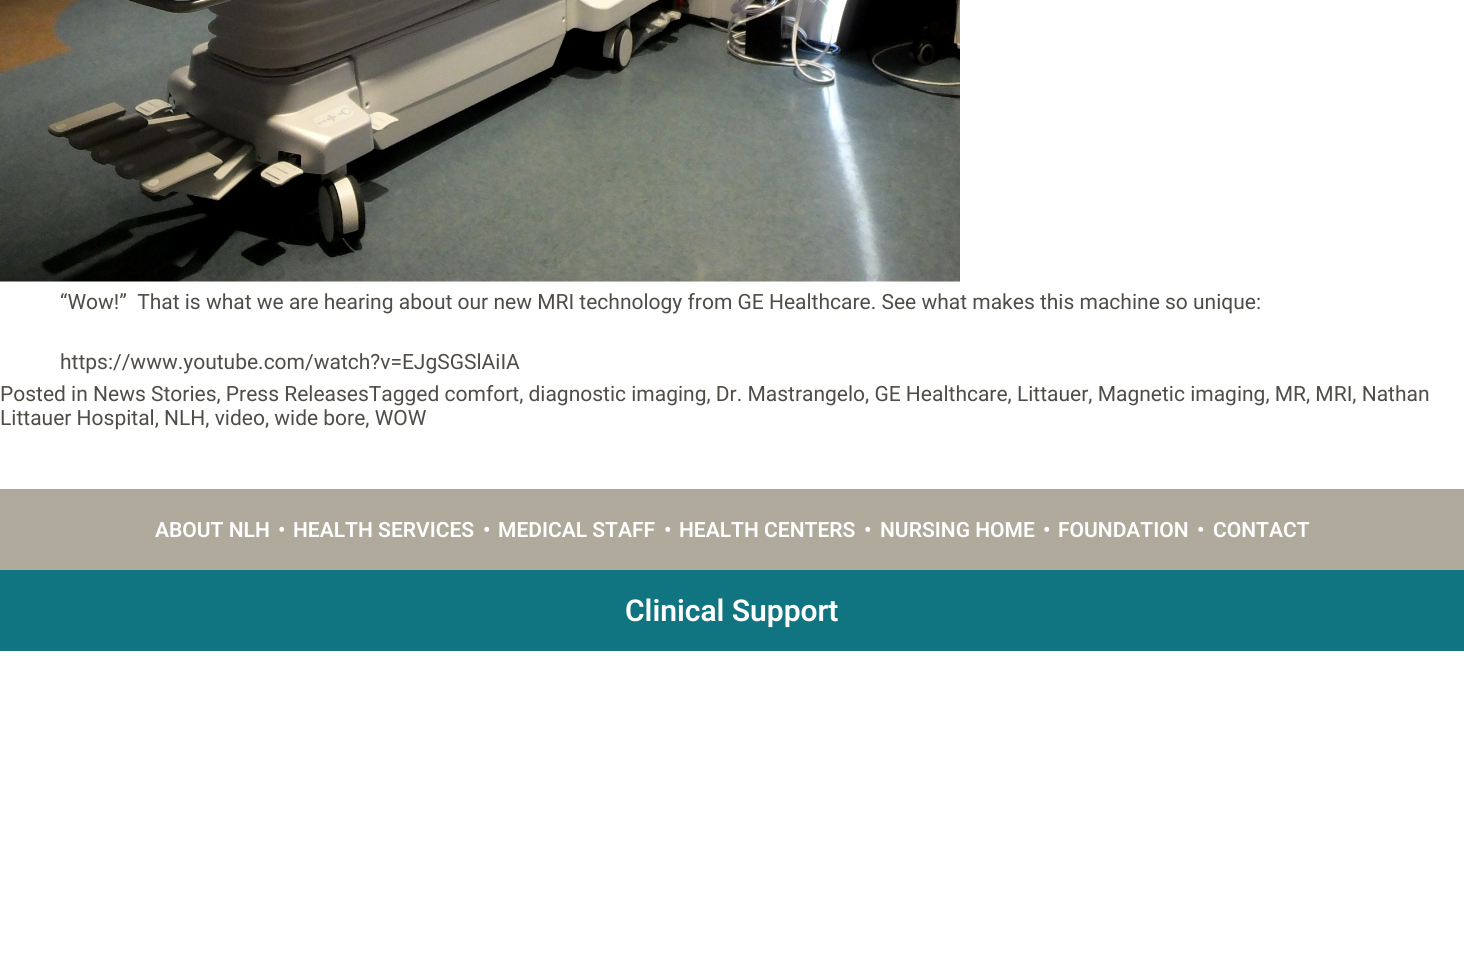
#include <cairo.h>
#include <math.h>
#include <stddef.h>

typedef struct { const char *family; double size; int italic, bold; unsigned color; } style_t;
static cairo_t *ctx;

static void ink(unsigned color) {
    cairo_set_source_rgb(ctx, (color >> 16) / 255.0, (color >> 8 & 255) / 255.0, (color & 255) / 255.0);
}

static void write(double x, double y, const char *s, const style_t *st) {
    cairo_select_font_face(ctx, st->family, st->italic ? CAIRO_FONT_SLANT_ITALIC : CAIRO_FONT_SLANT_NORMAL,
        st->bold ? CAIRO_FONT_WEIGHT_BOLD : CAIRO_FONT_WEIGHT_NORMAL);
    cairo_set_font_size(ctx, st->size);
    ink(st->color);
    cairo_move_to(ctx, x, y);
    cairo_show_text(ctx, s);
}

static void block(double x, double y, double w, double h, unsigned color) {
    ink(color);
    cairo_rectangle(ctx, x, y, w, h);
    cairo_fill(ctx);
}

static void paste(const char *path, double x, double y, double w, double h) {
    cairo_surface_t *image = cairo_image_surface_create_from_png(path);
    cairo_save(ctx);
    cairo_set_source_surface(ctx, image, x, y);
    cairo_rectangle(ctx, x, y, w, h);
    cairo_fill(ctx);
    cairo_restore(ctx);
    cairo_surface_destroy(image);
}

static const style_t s1 = {"Roboto", 21, 0, 0, 0x504d48};
static const style_t s2 = {"Roboto SemiBold", 21, 0, 0, 0xffffff};
static const style_t s3 = {"Roboto SemiBold", 30, 0, 0, 0xffffff};

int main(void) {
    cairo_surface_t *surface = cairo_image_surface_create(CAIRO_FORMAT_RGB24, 1464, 960);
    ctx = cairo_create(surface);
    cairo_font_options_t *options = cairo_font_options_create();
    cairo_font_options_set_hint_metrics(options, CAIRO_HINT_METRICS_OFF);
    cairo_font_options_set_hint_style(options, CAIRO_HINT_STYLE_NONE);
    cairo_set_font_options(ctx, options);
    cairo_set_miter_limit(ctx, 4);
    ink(0xffffff);
    cairo_paint(ctx);
    paste("pic1.png", 0, 0, 960, 282);
    write(60, 309, "“Wow!”  That is what we are hearing about our new MRI technology from GE Healthcare. See what makes this machine so unique:", &s1);
    write(60, 369, "https://www.youtube.com/watch?v=EJgSGSlAiIA", &s1);
    write(0, 401, "Posted in News Stories, Press ReleasesTagged comfort, diagnostic imaging, Dr. Mastrangelo, GE Healthcare, Littauer, Magnetic imaging, MR, MRI, Nathan", &s1);
    write(0, 425, "Littauer Hospital, NLH, video, wide bore, WOW", &s1);
    block(0, 489, 1464, 81, 0xafaa9c);
    write(155, 537, "ABOUT NLH", &s2);
    write(278, 537, "•", &s2);
    write(293, 537, "HEALTH SERVICES", &s2);
    write(483, 537, "•", &s2);
    write(498, 537, "MEDICAL STAFF", &s2);
    write(664, 537, "•", &s2);
    write(679, 537, "HEALTH CENTERS", &s2);
    write(864, 537, "•", &s2);
    write(880, 537, "NURSING HOME", &s2);
    write(1043, 537, "•", &s2);
    write(1058, 537, "FOUNDATION", &s2);
    write(1197, 537, "•", &s2);
    write(1213, 537, "CONTACT", &s2);
    block(0, 570, 1464, 81, 0x107580);
    write(625, 621, "Clinical Support", &s3);
    cairo_surface_write_to_png(surface, "screenshot.png");
    cairo_font_options_destroy(options);
    cairo_destroy(ctx);
    cairo_surface_destroy(surface);
    return 0;
}
